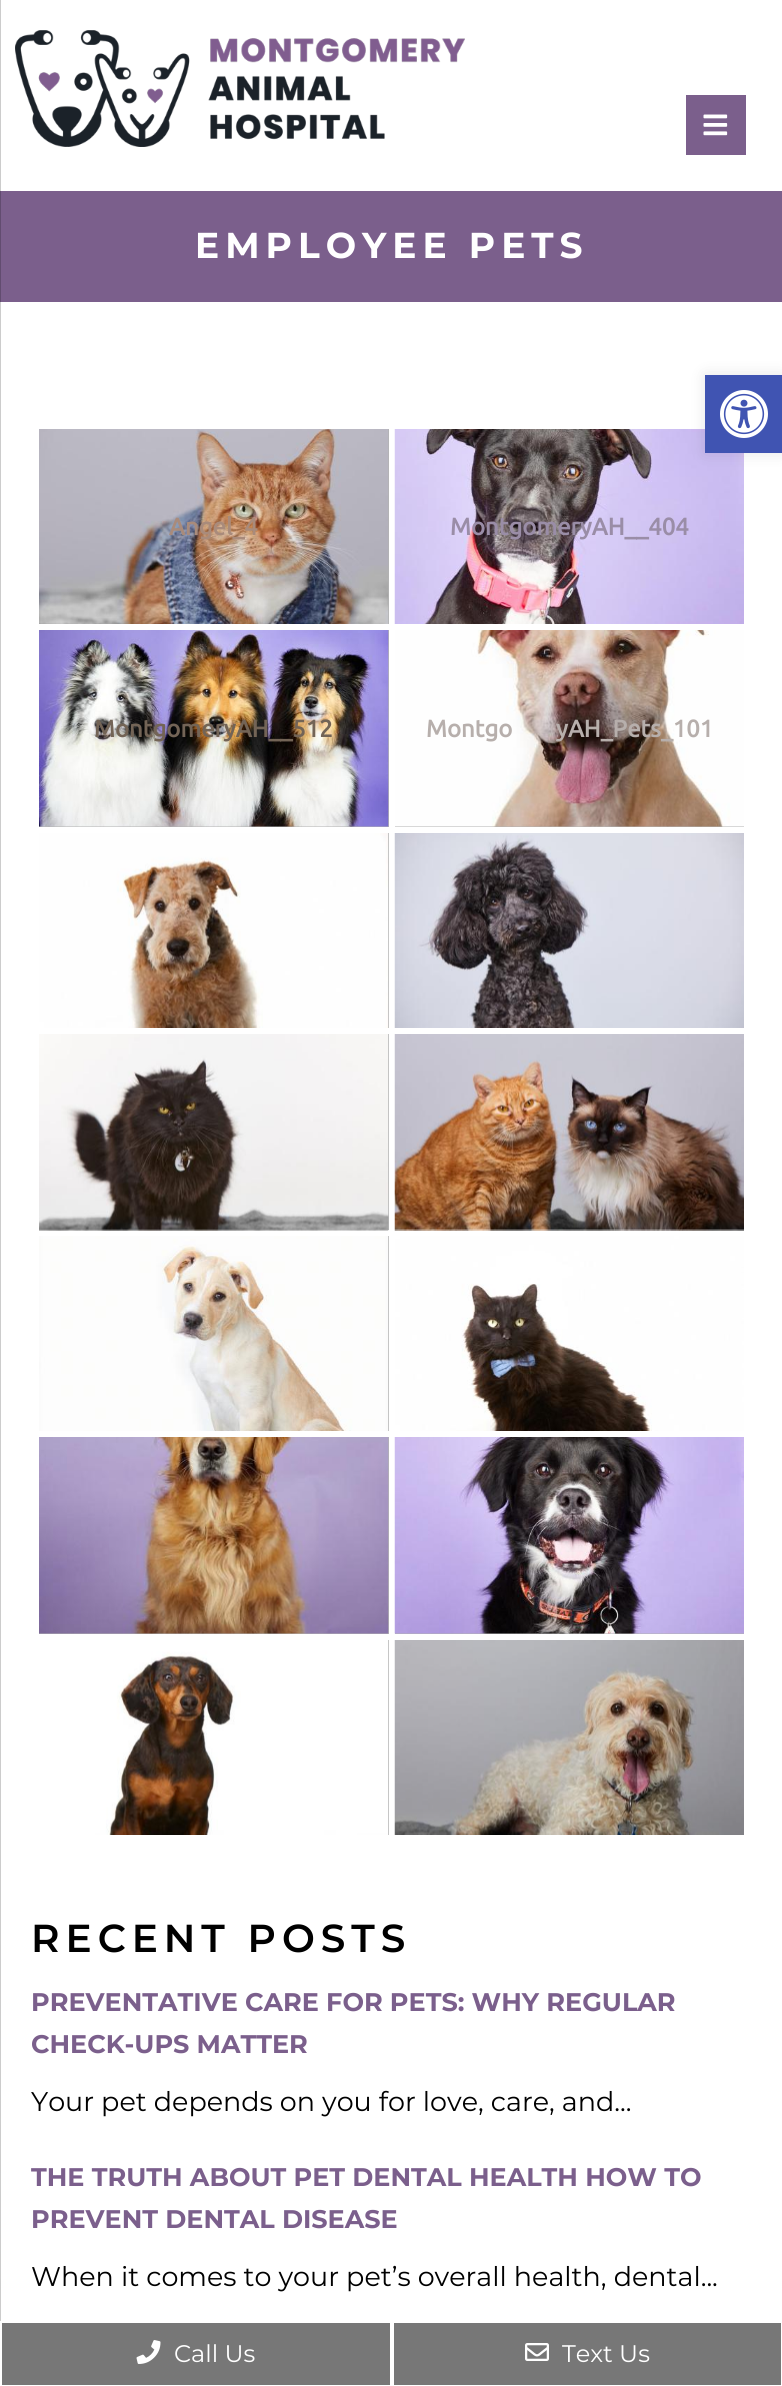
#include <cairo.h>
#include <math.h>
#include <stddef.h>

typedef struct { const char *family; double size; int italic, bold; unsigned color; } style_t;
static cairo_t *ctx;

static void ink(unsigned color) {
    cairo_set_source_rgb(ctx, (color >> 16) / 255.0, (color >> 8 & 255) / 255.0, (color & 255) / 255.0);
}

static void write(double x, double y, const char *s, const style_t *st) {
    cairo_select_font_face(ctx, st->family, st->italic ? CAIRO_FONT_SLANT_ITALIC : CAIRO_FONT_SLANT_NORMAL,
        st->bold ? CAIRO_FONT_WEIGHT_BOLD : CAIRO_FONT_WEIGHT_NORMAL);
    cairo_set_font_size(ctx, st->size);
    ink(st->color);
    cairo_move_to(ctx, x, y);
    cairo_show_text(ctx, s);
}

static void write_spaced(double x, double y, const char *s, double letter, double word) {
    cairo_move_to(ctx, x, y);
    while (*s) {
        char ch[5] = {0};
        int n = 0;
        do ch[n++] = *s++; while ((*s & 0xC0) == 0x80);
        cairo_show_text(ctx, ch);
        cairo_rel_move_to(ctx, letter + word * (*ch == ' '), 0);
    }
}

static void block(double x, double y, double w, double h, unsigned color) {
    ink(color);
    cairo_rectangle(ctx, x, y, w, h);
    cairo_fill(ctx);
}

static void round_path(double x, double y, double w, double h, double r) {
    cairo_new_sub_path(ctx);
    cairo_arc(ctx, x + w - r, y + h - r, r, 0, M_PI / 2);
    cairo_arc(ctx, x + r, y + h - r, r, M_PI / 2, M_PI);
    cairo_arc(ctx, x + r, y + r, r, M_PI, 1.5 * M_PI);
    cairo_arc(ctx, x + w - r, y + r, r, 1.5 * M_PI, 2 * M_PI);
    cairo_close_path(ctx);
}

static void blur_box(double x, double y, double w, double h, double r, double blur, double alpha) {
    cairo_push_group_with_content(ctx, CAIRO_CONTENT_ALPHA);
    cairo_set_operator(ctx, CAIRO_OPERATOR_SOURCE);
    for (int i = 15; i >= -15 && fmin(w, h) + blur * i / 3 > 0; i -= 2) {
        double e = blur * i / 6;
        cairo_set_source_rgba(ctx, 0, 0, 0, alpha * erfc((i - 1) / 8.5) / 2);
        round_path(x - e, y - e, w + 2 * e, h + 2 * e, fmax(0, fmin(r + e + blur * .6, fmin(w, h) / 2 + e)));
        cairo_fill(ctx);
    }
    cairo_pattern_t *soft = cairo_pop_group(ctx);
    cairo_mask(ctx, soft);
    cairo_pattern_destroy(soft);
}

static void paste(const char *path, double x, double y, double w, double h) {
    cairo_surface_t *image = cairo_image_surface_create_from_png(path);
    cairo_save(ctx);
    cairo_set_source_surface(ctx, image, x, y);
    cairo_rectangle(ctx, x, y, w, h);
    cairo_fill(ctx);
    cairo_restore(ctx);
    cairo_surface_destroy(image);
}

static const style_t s1 = {"Ubuntu", 24, 0, 1, 0xa98b7b};
static const style_t s2 = {"Ubuntu", 24, 0, 1, 0x9a8da7};
static const style_t s3 = {"Ubuntu", 24, 0, 1, 0x736456};
static const style_t s4 = {"Ubuntu", 24, 0, 1, 0xb7afac};
static const style_t s5 = {"Montserrat", 25.5, 0, 1, 0x7b5f8c};
static const style_t s6 = {"Montserrat", 27, 0, 0, 0x000000};
static const style_t s7 = {"Montserrat", 24, 0, 0, 0xffffff};

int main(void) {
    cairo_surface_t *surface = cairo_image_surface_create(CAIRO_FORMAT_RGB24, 782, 2386);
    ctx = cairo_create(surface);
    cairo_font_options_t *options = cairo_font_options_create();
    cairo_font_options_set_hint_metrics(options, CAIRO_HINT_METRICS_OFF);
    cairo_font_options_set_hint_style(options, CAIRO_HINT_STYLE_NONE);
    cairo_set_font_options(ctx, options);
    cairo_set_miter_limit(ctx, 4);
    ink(0xffffff);
    cairo_paint(ctx);
    block(0, 0, 1, 2321, 0xcccccc);
    paste("pic1.png", 15, 30, 450, 117);
    block(686, 95, 60, 60, 0x7b5f8c);
    paste("pic2.png", 703, 114, 25, 22);
    block(1, 191, 781, 111, 0x7b5f8c);
    block(0, 191, 1, 111, 0x624c70);
    cairo_select_font_face(ctx, "Montserrat", CAIRO_FONT_SLANT_NORMAL, CAIRO_FONT_WEIGHT_BOLD);
    cairo_set_font_size(ctx, 36);
    ink(0xffffff);
    write_spaced(195, 258, "EMPLOYEE PETS", 6, 0);
    block(388, 429, 1, 195, 0xb3b3b3);
    paste("pic3.png", 39, 429, 350, 195);
    write(169, 535, "Angel_4", &s1);
    paste("pic4.png", 394, 429, 350, 195);
    write(450, 535, "MontgomeryAH__404", &s2);
    block(39, 630, 350, 197, 0xb3b3b3);
    paste("pic5.png", 39, 630, 350, 197);
    write(94, 737, "MontgomeryAH__512", &s3);
    block(395, 826, 349, 1, 0xb3b3b3);
    paste("pic6.png", 395, 630, 349, 197);
    write(426, 737, "Montgo", &s4);
    write(556, 737, "yAH_Pets_101", &s4);
    block(388, 833, 1, 195, 0xb3b3b3);
    paste("pic7.png", 39, 833, 350, 195);
    paste("pic8.png", 394, 833, 350, 195);
    block(39, 1034, 350, 196, 0xb3b3b3);
    paste("pic9.png", 39, 1034, 350, 197);
    paste("pic10.png", 394, 1034, 350, 197);
    block(388, 1236, 1, 195, 0xb3b3b3);
    paste("pic11.png", 39, 1236, 350, 195);
    paste("pic12.png", 395, 1236, 349, 195);
    block(39, 1437, 350, 197, 0xb3b3b3);
    paste("pic13.png", 39, 1437, 350, 197);
    block(395, 1633, 349, 1, 0xb3b3b3);
    paste("pic14.png", 394, 1437, 350, 197);
    block(388, 1640, 1, 195, 0xb3b3b3);
    paste("pic15.png", 39, 1640, 350, 195);
    paste("pic16.png", 394, 1640, 350, 195);
    cairo_select_font_face(ctx, "Montserrat SemiBold", CAIRO_FONT_SLANT_NORMAL, CAIRO_FONT_WEIGHT_NORMAL);
    cairo_set_font_size(ctx, 39);
    ink(0x000000);
    write_spaced(31, 1952, "RECENT POSTS", 6, 0);
    write(31, 2011, "PREVENTATIVE CARE FOR PETS: WHY REGULAR", &s5);
    write(31, 2053, "CHECK-UPS MATTER", &s5);
    write(31, 2111, "Your pet depends on you for love, care, and...", &s6);
    write(31, 2186, "THE TRUTH ABOUT PET DENTAL HEALTH HOW TO", &s5);
    write(31, 2228, "PREVENT DENTAL DISEASE", &s5);
    write(31, 2286, "When it comes to your pet’s overall health, dental...", &s6);
    ink(0x000000);
    blur_box(705, 375, 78, 78, 0, 7.5, 0.1);
    block(705, 375, 77, 78, 0x4054b2);
    paste("pic17.png", 720, 390, 48, 48);
    block(2, 2323, 388, 62, 0x777777);
    paste("pic18.png", 136, 2340, 25, 24);
    write(174, 2362, "Call Us", &s7);
    block(394, 2323, 387, 62, 0x777777);
    paste("pic19.png", 525, 2343, 24, 18);
    write(562, 2362, "Text Us", &s7);
    cairo_surface_write_to_png(surface, "screenshot.png");
    cairo_font_options_destroy(options);
    cairo_destroy(ctx);
    cairo_surface_destroy(surface);
    return 0;
}
